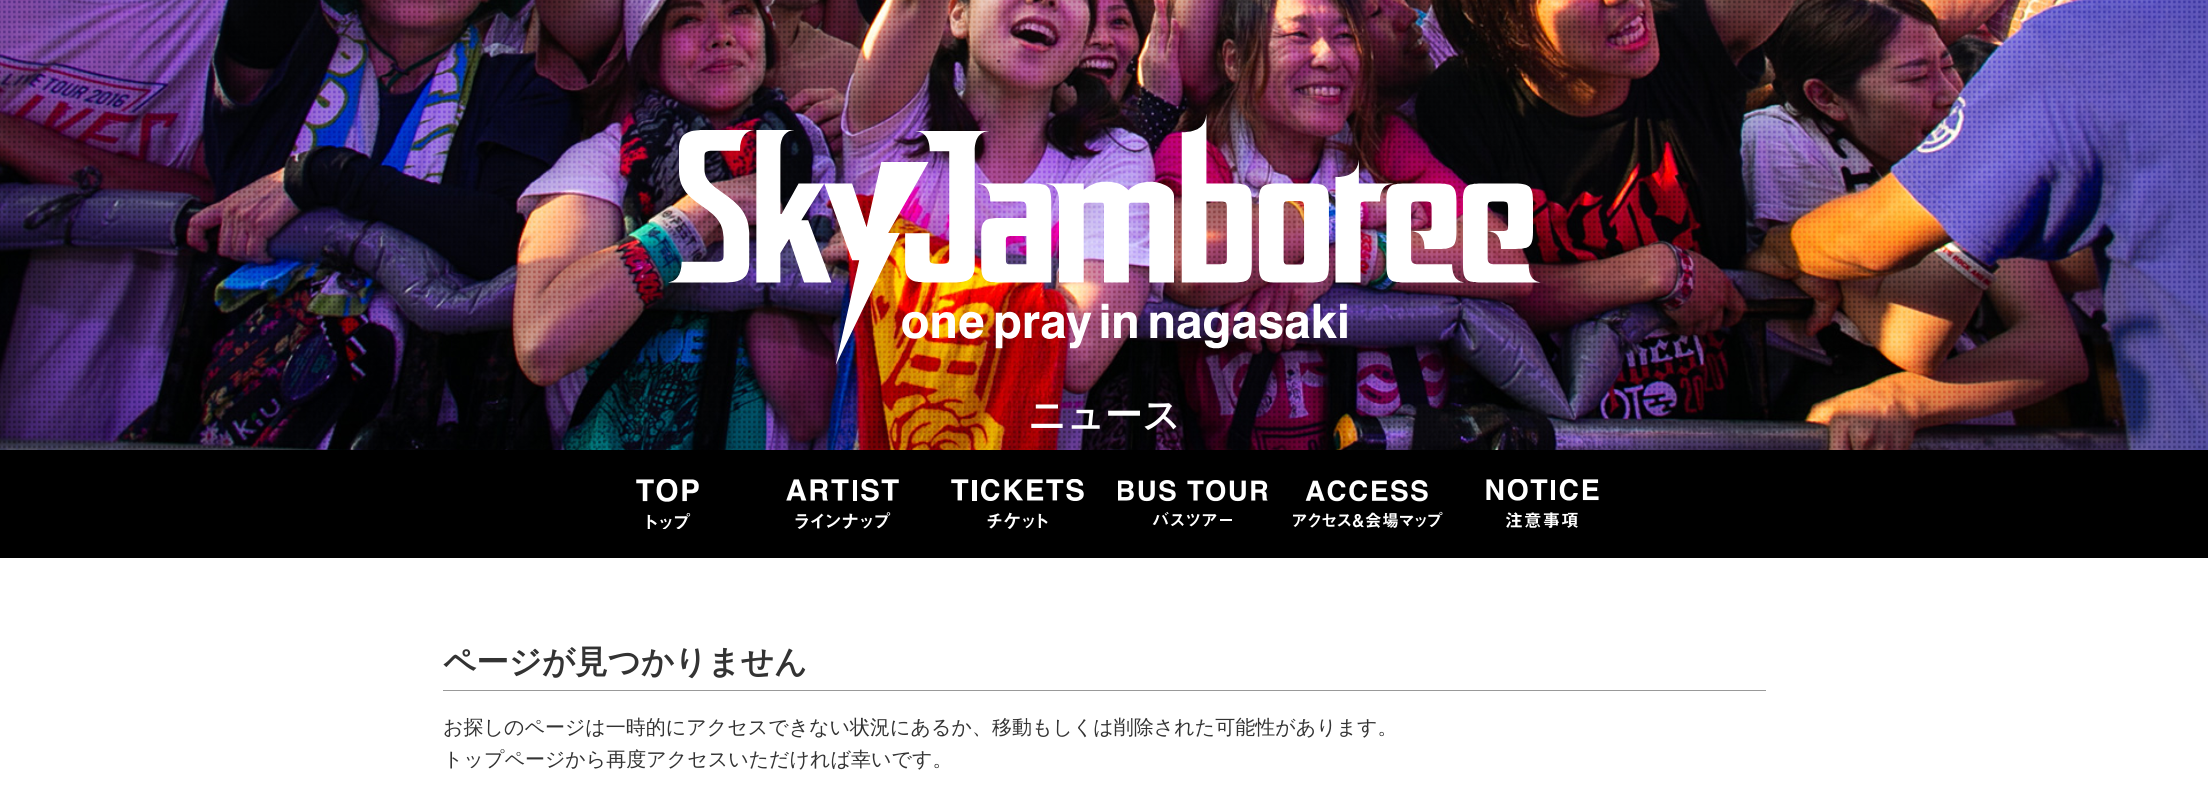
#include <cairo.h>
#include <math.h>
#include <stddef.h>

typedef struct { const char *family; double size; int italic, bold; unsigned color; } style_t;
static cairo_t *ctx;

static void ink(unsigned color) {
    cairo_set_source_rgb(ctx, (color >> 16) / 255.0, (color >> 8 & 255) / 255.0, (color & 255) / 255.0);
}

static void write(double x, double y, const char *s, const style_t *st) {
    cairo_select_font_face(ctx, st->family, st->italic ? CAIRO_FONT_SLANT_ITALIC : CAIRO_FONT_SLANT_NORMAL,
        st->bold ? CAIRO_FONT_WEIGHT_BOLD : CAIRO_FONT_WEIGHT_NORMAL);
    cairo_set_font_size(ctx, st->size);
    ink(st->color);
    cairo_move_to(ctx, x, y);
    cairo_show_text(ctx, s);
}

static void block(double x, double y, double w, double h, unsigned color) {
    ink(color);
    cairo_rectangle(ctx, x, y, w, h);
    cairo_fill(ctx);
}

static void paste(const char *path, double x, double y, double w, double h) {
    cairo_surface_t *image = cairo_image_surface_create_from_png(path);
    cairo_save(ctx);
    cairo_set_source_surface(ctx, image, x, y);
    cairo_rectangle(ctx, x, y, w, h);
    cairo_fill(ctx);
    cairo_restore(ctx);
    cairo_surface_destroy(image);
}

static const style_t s1 = {"WenQuanYi Zen Hei", 37.5, 0, 1, 0xffffff};
static const style_t s2 = {"WenQuanYi Zen Hei", 32.5, 0, 1, 0x333333};
static const style_t s3 = {"WenQuanYi Zen Hei Medium", 20, 0, 0, 0x333333};

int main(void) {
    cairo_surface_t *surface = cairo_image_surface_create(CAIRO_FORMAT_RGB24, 2208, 788);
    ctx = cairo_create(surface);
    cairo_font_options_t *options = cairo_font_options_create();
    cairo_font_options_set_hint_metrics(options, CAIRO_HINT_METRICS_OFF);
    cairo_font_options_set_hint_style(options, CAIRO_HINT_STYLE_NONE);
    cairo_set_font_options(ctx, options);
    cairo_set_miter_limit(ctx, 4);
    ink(0xffffff);
    cairo_paint(ctx);
    paste("pic1.png", 0, 0, 2208, 450);
    paste("pic2.png", 668, 114, 873, 251);
    write(1028, 428, "ニュース", &s1);
    block(0, 450, 2208, 108, 0x000000);
    paste("pic3.png", 636, 479, 63, 50);
    paste("pic4.png", 786, 479, 113, 50);
    paste("pic5.png", 951, 479, 133, 50);
    paste("pic6.png", 1118, 480, 150, 47);
    paste("pic7.png", 1293, 480, 150, 48);
    paste("pic8.png", 1486, 479, 113, 49);
    block(443, 690, 1323, 1, 0x999999);
    write(443, 673, "ページが見つかりません", &s2);
    write(443, 734, "お探しのページは一時的にアクセスできない状況にあるか、移動もしくは削除された可能性があります。", &s3);
    write(443, 766, "トップページから再度アクセスいただければ幸いです。", &s3);
    cairo_surface_write_to_png(surface, "screenshot.png");
    cairo_font_options_destroy(options);
    cairo_destroy(ctx);
    cairo_surface_destroy(surface);
    return 0;
}
